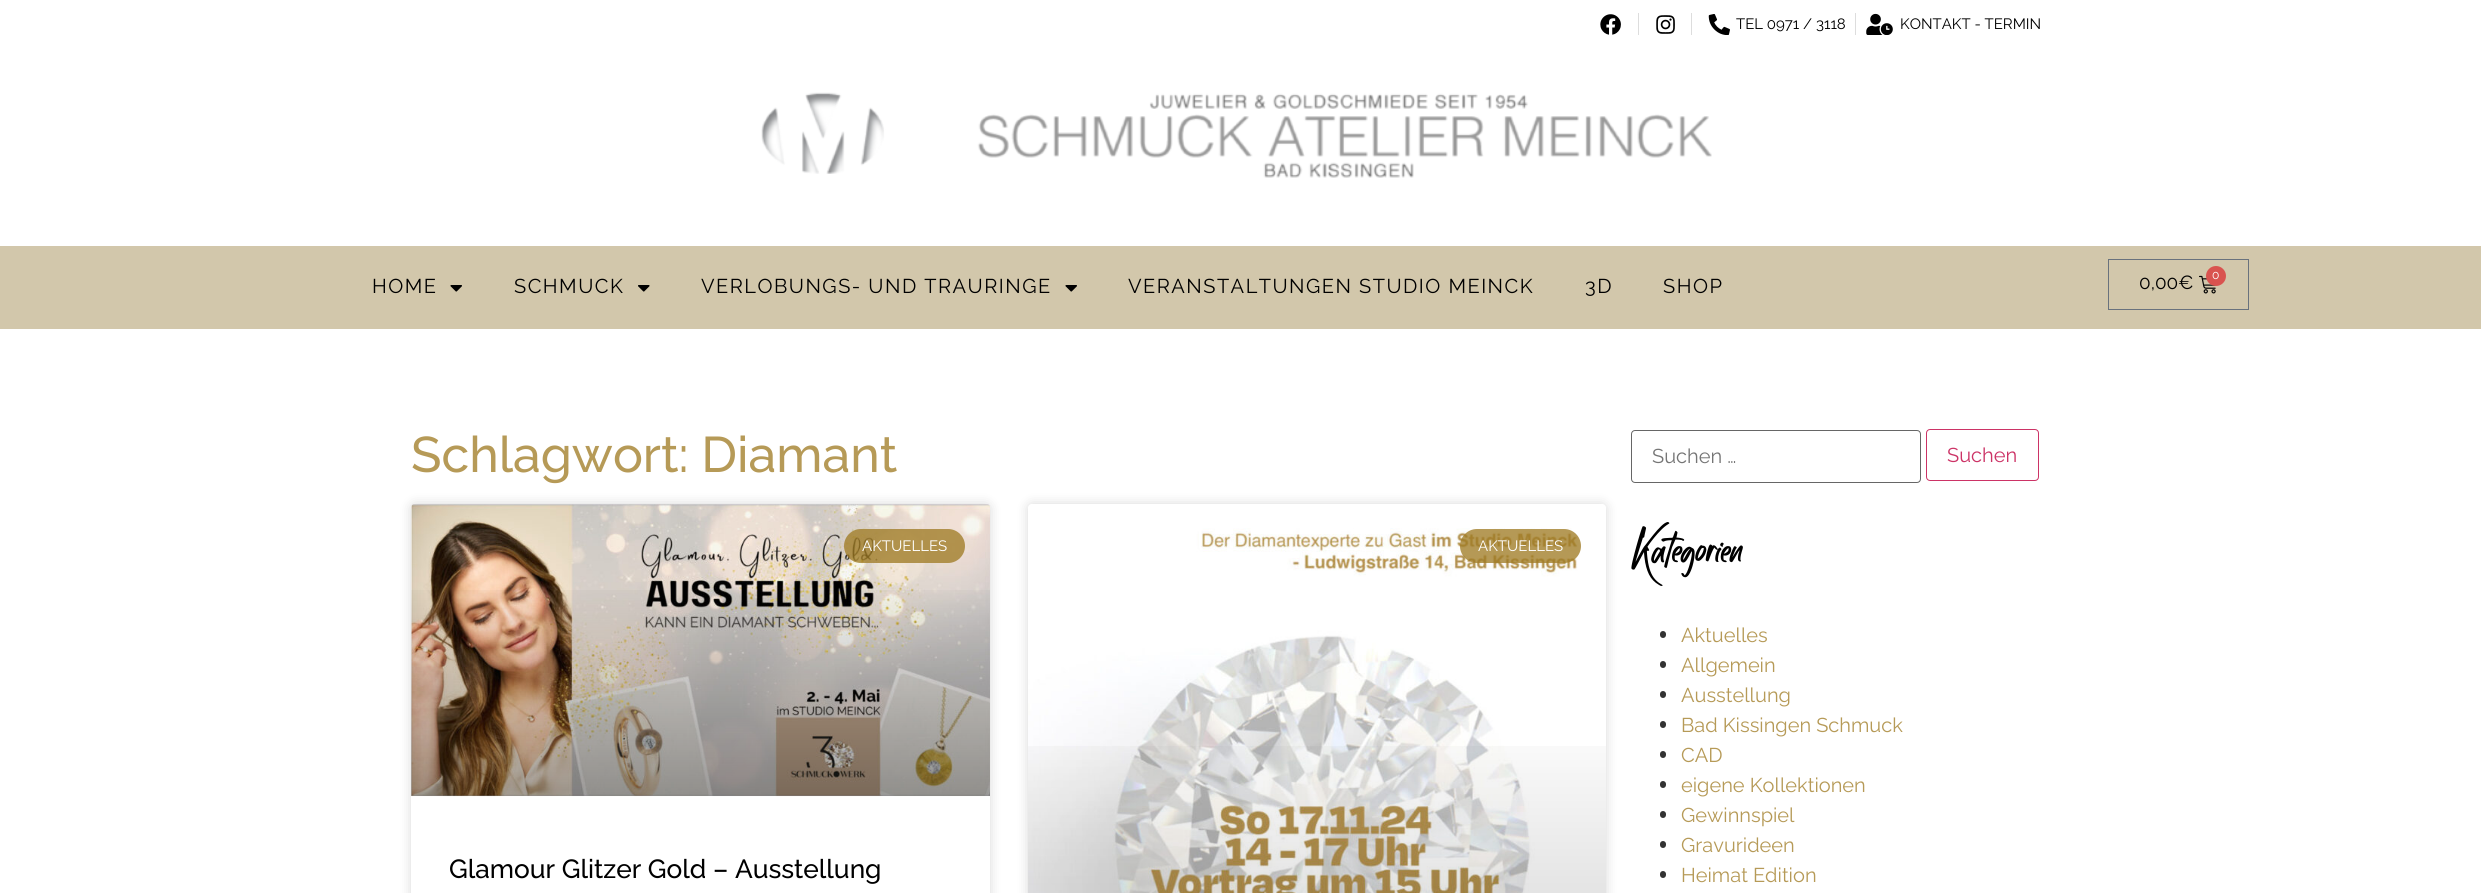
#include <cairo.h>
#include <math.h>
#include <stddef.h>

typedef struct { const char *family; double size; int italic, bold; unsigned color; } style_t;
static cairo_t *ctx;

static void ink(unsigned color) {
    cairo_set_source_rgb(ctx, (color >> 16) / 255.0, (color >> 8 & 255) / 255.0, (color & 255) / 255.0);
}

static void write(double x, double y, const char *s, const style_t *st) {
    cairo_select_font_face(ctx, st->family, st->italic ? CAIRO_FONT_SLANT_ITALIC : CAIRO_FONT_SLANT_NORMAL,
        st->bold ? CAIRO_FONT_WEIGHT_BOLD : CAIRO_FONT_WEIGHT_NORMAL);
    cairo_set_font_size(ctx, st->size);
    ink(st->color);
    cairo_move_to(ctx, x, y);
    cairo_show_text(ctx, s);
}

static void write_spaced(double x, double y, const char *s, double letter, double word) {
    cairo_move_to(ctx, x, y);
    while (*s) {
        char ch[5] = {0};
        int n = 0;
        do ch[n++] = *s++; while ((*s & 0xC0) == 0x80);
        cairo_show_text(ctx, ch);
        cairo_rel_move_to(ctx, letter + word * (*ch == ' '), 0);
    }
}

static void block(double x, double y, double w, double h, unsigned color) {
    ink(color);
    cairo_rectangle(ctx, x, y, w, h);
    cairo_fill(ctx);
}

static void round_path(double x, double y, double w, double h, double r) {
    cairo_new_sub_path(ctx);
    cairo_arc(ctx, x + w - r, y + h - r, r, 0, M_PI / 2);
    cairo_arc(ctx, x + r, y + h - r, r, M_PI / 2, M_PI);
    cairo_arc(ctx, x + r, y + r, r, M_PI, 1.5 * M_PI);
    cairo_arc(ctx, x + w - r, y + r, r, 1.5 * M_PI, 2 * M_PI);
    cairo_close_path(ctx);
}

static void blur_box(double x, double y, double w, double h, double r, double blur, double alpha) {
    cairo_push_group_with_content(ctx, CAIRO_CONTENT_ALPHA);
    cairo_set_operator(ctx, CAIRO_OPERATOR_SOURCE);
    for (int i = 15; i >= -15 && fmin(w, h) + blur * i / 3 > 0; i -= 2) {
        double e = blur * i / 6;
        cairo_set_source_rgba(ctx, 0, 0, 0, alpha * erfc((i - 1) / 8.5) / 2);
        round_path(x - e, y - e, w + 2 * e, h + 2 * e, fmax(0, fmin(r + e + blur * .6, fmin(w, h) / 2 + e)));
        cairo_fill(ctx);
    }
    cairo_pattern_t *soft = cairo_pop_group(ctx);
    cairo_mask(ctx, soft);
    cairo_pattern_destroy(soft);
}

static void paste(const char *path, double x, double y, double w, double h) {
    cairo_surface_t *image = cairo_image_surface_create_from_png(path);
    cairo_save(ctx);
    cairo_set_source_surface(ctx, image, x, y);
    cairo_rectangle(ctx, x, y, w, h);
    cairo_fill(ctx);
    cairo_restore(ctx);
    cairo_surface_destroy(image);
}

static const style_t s1 = {"Raleway", 15, 0, 0, 0x000000};
static const style_t s2 = {"Raleway", 19, 0, 0, 0x000000};
static const style_t s3 = {"Raleway", 12, 0, 0, 0xffffff};
static const style_t s4 = {"Raleway Medium", 50, 0, 0, 0xb69a57};
static const style_t s5 = {"Raleway", 15, 0, 0, 0xffffff};
static const style_t s6 = {"Raleway Medium", 26.25, 0, 0, 0x000000};
static const style_t s7 = {"Raleway", 20, 0, 0, 0x757575};
static const style_t s8 = {"Raleway", 20, 0, 0, 0xcc3366};
static const style_t s9 = {"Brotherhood", 69, 0, 0, 0x000000};
static const style_t s10 = {"Raleway", 20, 0, 0, 0xb69a57};

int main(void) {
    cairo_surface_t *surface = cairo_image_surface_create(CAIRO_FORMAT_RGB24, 2481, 893);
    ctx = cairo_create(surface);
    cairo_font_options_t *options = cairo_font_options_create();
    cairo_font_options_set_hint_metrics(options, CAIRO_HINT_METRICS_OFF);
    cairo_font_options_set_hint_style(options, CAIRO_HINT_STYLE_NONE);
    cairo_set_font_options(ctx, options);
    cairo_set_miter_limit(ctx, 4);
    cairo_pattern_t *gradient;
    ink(0xffffff);
    cairo_paint(ctx);
    paste("pic1.png", 1600, 14, 21, 21);
    block(1638, 13, 1, 22, 0xdddddd);
    paste("pic2.png", 1656, 15, 19, 19);
    block(1691, 13, 1, 22, 0xdddddd);
    paste("pic3.png", 1708, 14, 22, 21);
    write(1736, 29, "TEL 0971 / 3118", &s1);
    block(1855, 13, 1, 22, 0xdddddd);
    paste("pic4.png", 1866, 13, 27, 22);
    write(1900, 29, "KONTAKT - TERMIN", &s1);
    paste("pic5.png", 761, 92, 951, 86);
    block(0, 246, 2481, 83, 0xd2c7ab);
    cairo_set_font_size(ctx, 20);
    ink(0x000000);
    write_spaced(372, 293, "HOME", 1.5, 0);
    paste("pic6.png", 450, 285, 12, 7);
    write_spaced(514, 293, "SCHMUCK", 1.5, 0);
    paste("pic7.png", 638, 285, 12, 7);
    write_spaced(701, 293, "VERLOBUNGS- UND TRAURINGE", 1.5, 0);
    paste("pic6.png", 1065, 285, 12, 7);
    write_spaced(1128, 293, "VERANSTALTUNGEN STUDIO MEINCK", 1.5, 0);
    write_spaced(1585, 293, "3D", 1.5, 0);
    write_spaced(1663, 293, "SHOP", 1.5, 0);
    cairo_rectangle(ctx, 2108.5, 259.5, 140, 50);
    ink(0x69727d);
    cairo_set_line_width(ctx, 1);
    cairo_stroke(ctx);
    write(2139, 289, "0,00€", &s2);
    paste("pic8.png", 2199, 275, 17, 19);
    ink(0xd9534f);
    cairo_arc(ctx, 2216, 276, 10, 0, 2 * M_PI);
    cairo_fill(ctx);
    write(2212, 279, "0", &s3);
    write(411, 472, "Schlagwort: Diamant", &s4);
    ink(0x000000);
    blur_box(411, 504, 579, 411, 4, 6, 0.15);
    ink(0xffffff);
    round_path(411, 504, 579, 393, 4);
    cairo_fill(ctx);
    paste("pic9.png", 411, 504, 579, 293);
    gradient = cairo_pattern_create_linear(701, 796, 701, 504);
    cairo_pattern_add_color_stop_rgba(gradient, 0, 0, 0, 0, 0.35);
    cairo_pattern_add_color_stop_rgba(gradient, 0.75, 0, 0, 0, 0);
    cairo_set_source(ctx, gradient);
    cairo_pattern_destroy(gradient);
    cairo_rectangle(ctx, 411, 590, 579, 206);
    cairo_fill(ctx);
    cairo_set_source_rgba(ctx, 0.627, 0.486, 0.145, 0.77);
    round_path(844, 529, 121, 34, 17);
    cairo_fill(ctx);
    write(862, 551, "AKTUELLES", &s5);
    write(449, 878, "Glamour Glitzer Gold – Ausstellung", &s6);
    cairo_save(ctx);
    cairo_set_fill_rule(ctx, CAIRO_FILL_RULE_EVEN_ODD);
    cairo_new_path(ctx);
    cairo_move_to(ctx, 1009, 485);
    cairo_line_to(ctx, 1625, 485);
    cairo_line_to(ctx, 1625, 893);
    cairo_line_to(ctx, 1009, 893);
    cairo_close_path(ctx);
    cairo_move_to(ctx, 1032, 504);
    cairo_line_to(ctx, 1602, 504);
    cairo_curve_to(ctx, 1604, 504, 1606, 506, 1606, 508);
    cairo_line_to(ctx, 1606, 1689);
    cairo_curve_to(ctx, 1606, 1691, 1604, 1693, 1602, 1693);
    cairo_line_to(ctx, 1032, 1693);
    cairo_curve_to(ctx, 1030, 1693, 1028, 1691, 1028, 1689);
    cairo_line_to(ctx, 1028, 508);
    cairo_curve_to(ctx, 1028, 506, 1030, 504, 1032, 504);
    cairo_close_path(ctx);
    cairo_clip(ctx);
    ink(0x000000);
    blur_box(1028, 504, 578, 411, 4, 6, 0.15);
    cairo_restore(ctx);
    paste("pic10.png", 1028, 528, 550, 365);
    gradient = cairo_pattern_create_linear(1317, 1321, 1317, 504);
    cairo_pattern_add_color_stop_rgba(gradient, 0, 0, 0, 0, 0.35);
    cairo_pattern_add_color_stop_rgba(gradient, 0.75, 0, 0, 0, 0);
    cairo_set_source(ctx, gradient);
    cairo_pattern_destroy(gradient);
    cairo_rectangle(ctx, 1028, 746, 578, 147);
    cairo_fill(ctx);
    cairo_set_source_rgba(ctx, 0.627, 0.486, 0.145, 0.77);
    round_path(1460, 529, 121, 34, 17);
    cairo_fill(ctx);
    write(1478, 551, "AKTUELLES", &s5);
    round_path(1631.5, 430.5, 289, 52, 3.5);
    ink(0x666666);
    cairo_stroke(ctx);
    write(1652, 463, "Suchen …", &s7);
    round_path(1926.5, 429.5, 112, 51, 3.5);
    ink(0xcc3366);
    cairo_stroke(ctx);
    write(1947, 462, "Suchen", &s8);
    write(1631, 563, "Kategorien", &s9);
    ink(0x333333);
    round_path(1660, 631, 6, 7, 3);
    cairo_fill(ctx);
    write(1681, 642, "Aktuelles", &s10);
    ink(0x333333);
    round_path(1660, 661, 6, 7, 3);
    cairo_fill(ctx);
    write(1681, 672, "Allgemein", &s10);
    ink(0x333333);
    round_path(1660, 691, 6, 7, 3);
    cairo_fill(ctx);
    write(1681, 702, "Ausstellung", &s10);
    ink(0x333333);
    round_path(1660, 721, 6, 7, 3);
    cairo_fill(ctx);
    write(1681, 732, "Bad Kissingen Schmuck", &s10);
    ink(0x333333);
    round_path(1660, 751, 6, 7, 3);
    cairo_fill(ctx);
    write(1681, 762, "CAD", &s10);
    ink(0x333333);
    round_path(1660, 781, 6, 7, 3);
    cairo_fill(ctx);
    write(1681, 792, "eigene Kollektionen", &s10);
    ink(0x333333);
    round_path(1660, 811, 6, 7, 3);
    cairo_fill(ctx);
    write(1681, 822, "Gewinnspiel", &s10);
    ink(0x333333);
    round_path(1660, 841, 6, 7, 3);
    cairo_fill(ctx);
    write(1681, 852, "Gravurideen", &s10);
    ink(0x333333);
    round_path(1660, 871, 6, 7, 3);
    cairo_fill(ctx);
    write(1681, 882, "Heimat Edition", &s10);
    cairo_surface_write_to_png(surface, "screenshot.png");
    cairo_font_options_destroy(options);
    cairo_destroy(ctx);
    cairo_surface_destroy(surface);
    return 0;
}
